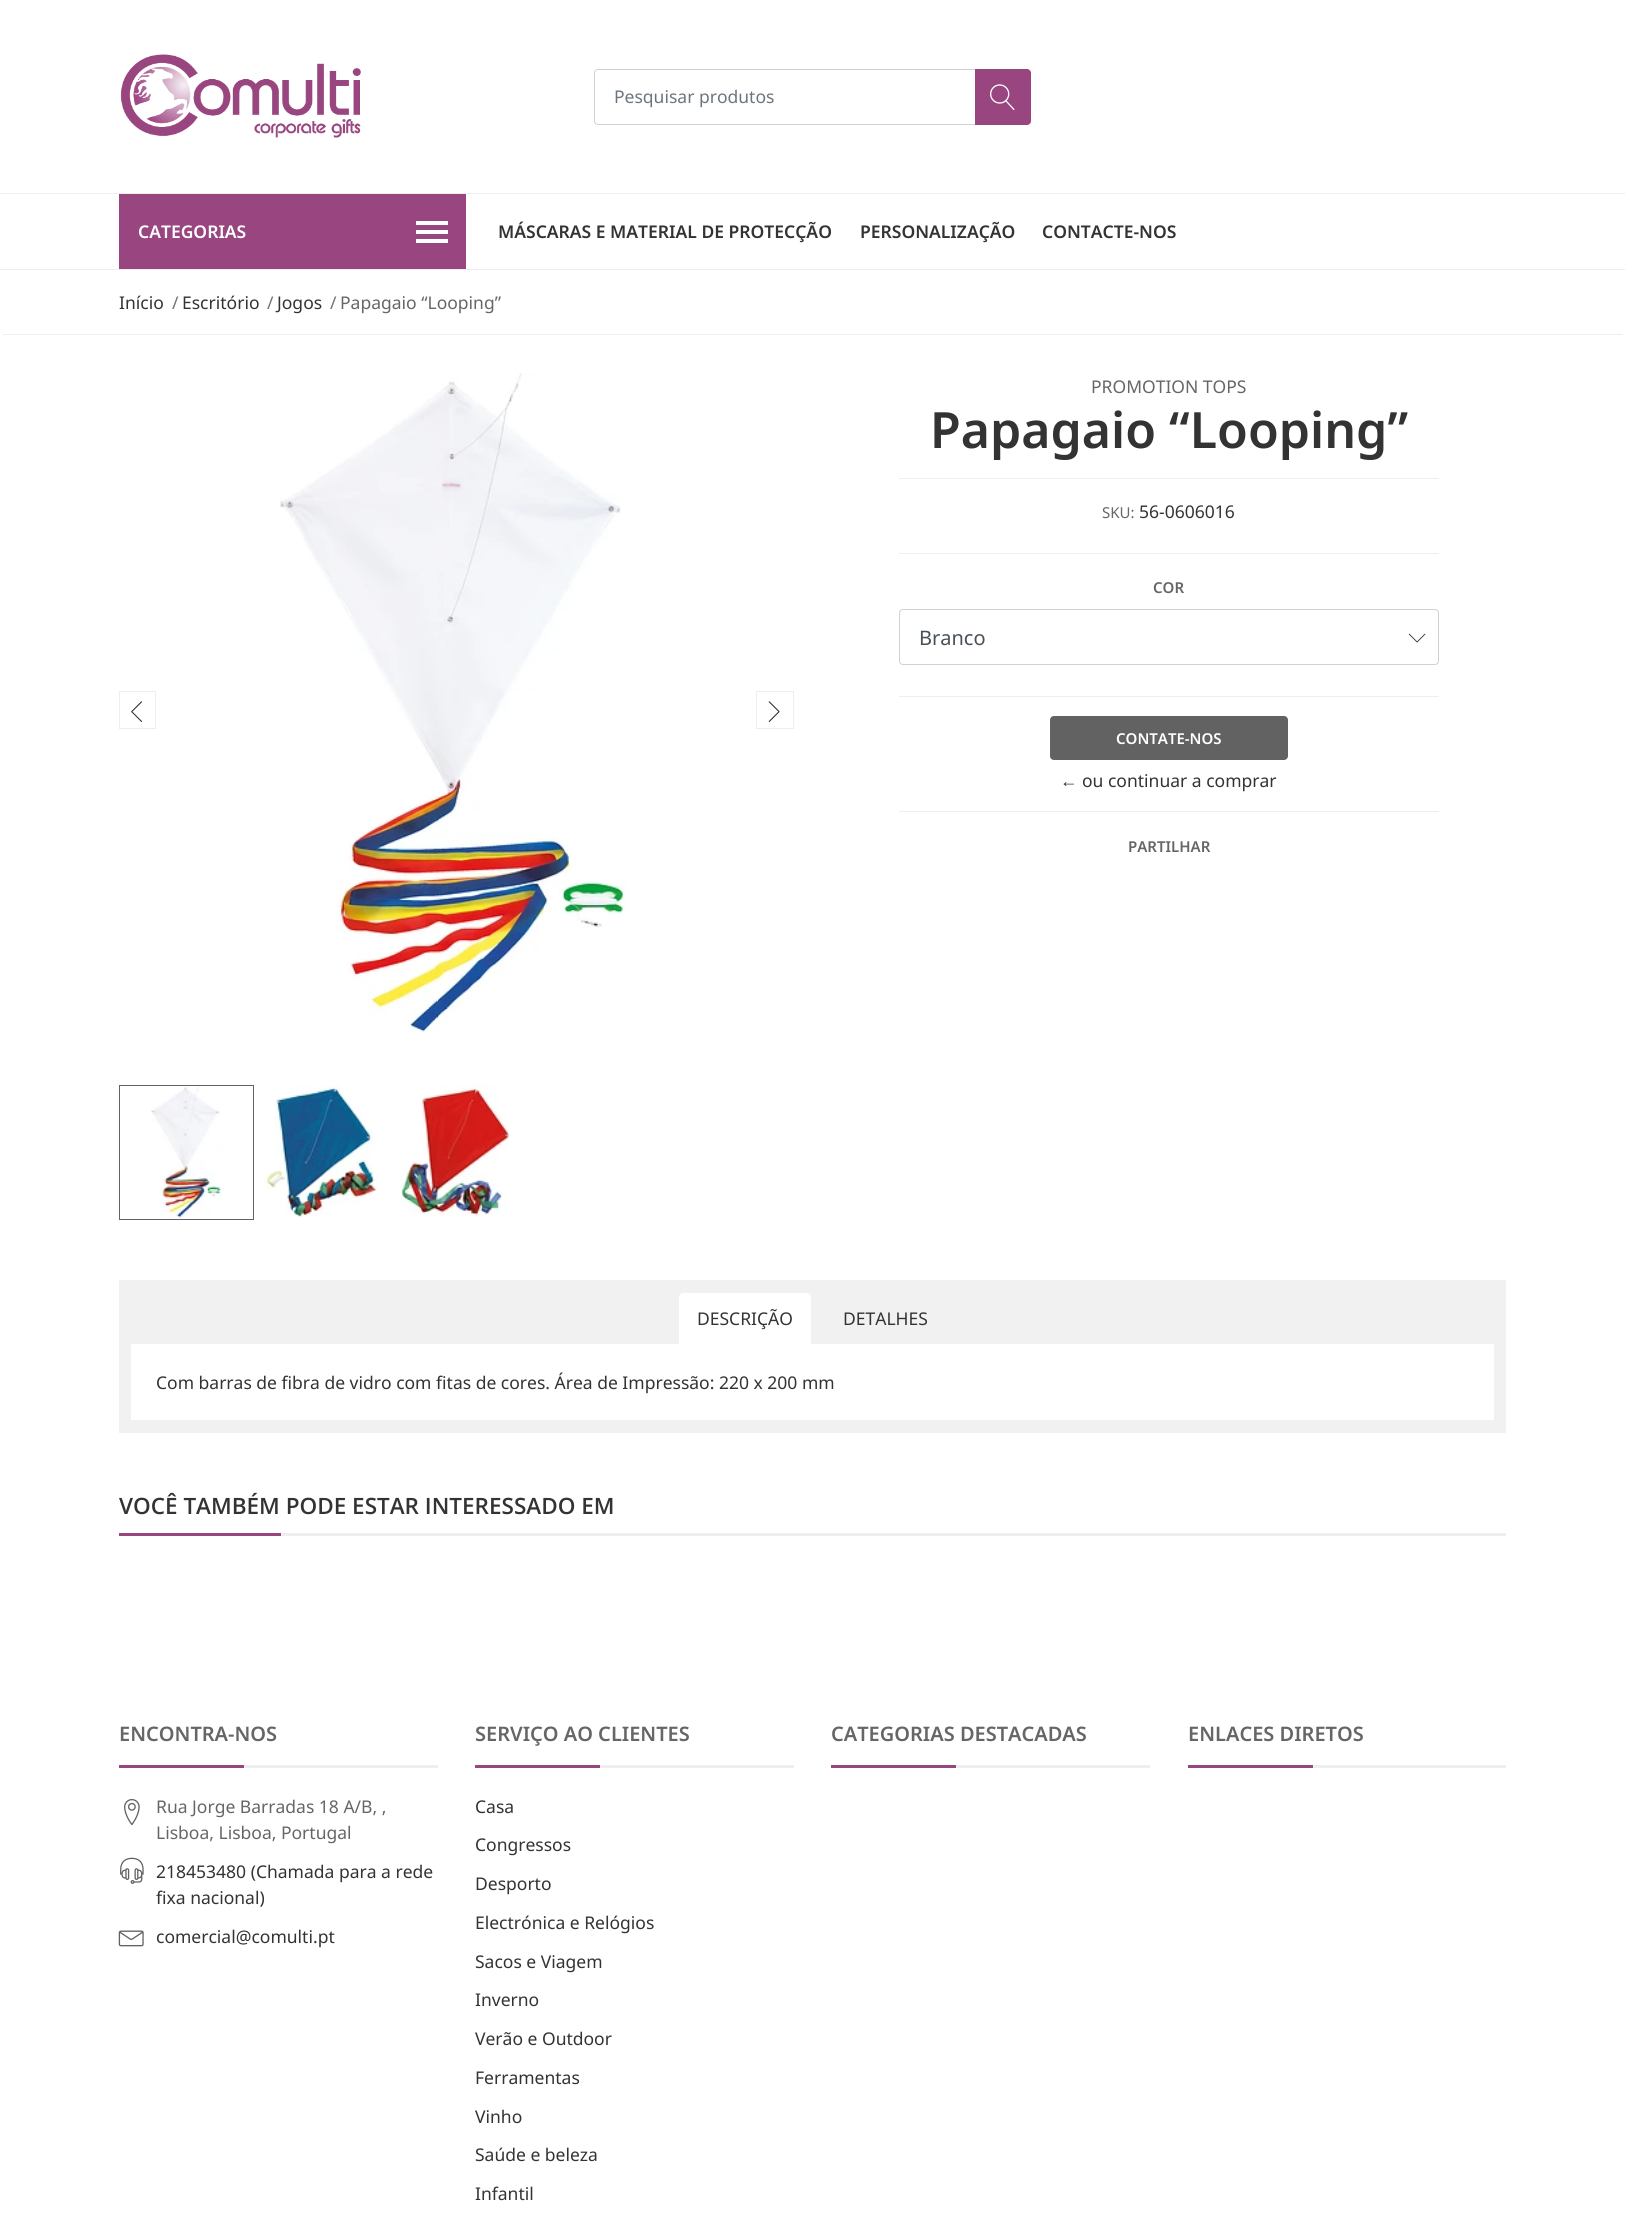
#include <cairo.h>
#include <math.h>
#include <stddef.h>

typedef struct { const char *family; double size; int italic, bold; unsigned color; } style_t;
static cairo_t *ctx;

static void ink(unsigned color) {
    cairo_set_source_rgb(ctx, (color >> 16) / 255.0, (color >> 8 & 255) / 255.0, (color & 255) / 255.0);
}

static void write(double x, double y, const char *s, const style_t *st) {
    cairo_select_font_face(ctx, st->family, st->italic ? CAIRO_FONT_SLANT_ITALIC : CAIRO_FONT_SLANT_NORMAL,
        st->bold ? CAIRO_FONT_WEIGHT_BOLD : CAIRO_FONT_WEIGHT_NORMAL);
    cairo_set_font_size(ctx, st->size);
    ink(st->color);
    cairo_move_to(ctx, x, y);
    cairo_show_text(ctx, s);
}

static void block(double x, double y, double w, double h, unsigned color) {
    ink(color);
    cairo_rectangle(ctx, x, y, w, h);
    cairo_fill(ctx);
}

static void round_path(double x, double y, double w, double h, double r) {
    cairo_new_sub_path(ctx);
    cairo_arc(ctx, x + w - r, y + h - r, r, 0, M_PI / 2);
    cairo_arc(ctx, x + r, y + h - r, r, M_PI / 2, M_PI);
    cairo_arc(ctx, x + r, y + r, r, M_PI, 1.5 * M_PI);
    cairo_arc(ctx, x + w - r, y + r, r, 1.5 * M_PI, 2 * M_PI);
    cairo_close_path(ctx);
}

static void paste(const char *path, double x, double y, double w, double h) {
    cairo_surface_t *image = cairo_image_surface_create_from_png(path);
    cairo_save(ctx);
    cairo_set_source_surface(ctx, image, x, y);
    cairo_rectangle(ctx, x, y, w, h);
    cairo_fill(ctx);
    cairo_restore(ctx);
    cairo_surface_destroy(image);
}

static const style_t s1 = {"Noto Sans", 17.5, 0, 0, 0x6c757d};
static const style_t s2 = {"Noto Sans SemiBold", 17.5, 0, 0, 0xffffff};
static const style_t s3 = {"Noto Sans SemiBold", 17.5, 0, 0, 0x333333};
static const style_t s4 = {"Noto Sans", 17.5, 0, 0, 0x333333};
static const style_t s5 = {"Noto Sans", 17.5, 0, 0, 0x666666};
static const style_t s6 = {"Noto Sans SemiBold", 50, 0, 0, 0x333333};
static const style_t s7 = {"Noto Sans", 15, 0, 0, 0x666666};
static const style_t s8 = {"Noto Sans SemiBold", 15, 0, 0, 0x666666};
static const style_t s9 = {"Noto Sans", 20, 0, 0, 0x495057};
static const style_t s10 = {"Noto Sans SemiBold", 15, 0, 0, 0xffffff};
static const style_t s11 = {"Liberation Serif", 17.5, 0, 0, 0x333333};
static const style_t s12 = {"Open Sans SemiBold", 22.5, 0, 0, 0x333333};
static const style_t s13 = {"Noto Sans SemiBold", 20, 0, 0, 0x666666};

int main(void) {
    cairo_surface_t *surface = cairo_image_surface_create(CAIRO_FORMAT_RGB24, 1625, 2217);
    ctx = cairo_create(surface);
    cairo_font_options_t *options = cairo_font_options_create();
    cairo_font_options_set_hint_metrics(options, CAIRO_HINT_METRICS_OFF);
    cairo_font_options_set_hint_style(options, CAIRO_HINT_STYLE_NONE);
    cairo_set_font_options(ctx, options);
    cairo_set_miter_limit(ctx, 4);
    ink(0xffffff);
    cairo_paint(ctx);
    paste("pic1.png", 120, 54, 241, 84);
    round_path(594.5, 69.5, 436, 55, 3.5);
    ink(0xd1d1d1);
    cairo_set_line_width(ctx, 1);
    cairo_stroke(ctx);
    write(614, 103, "Pesquisar produtos", &s1);
    ink(0x994580);
    cairo_new_path(ctx);
    cairo_move_to(ctx, 975, 69);
    cairo_line_to(ctx, 1027, 69);
    cairo_curve_to(ctx, 1029, 69, 1031, 71, 1031, 73);
    cairo_line_to(ctx, 1031, 121);
    cairo_curve_to(ctx, 1031, 123, 1029, 125, 1027, 125);
    cairo_line_to(ctx, 975, 125);
    cairo_close_path(ctx);
    cairo_fill(ctx);
    paste("pic2.png", 990, 84, 25, 27);
    block(0, 193, 1625, 1, 0xeeeeee);
    block(0, 269, 1625, 1, 0xeeeeee);
    block(119, 194, 347, 75, 0x994580);
    write(138, 238, "CATEGORIAS", &s2);
    block(416, 221, 32, 4, 0xffffff);
    block(416, 230, 32, 4, 0xffffff);
    block(416, 239, 32, 4, 0xffffff);
    write(498, 238, "MÁSCARAS E MATERIAL DE PROTECÇÃO", &s3);
    write(860, 238, "PERSONALIZAÇÃO", &s3);
    write(1042, 238, "CONTACTE-NOS", &s3);
    block(3, 334, 1620, 1, 0xeeeeee);
    write(119, 309, "Início", &s4);
    write(172, 309, "/", &s1);
    write(182, 309, "Escritório", &s4);
    write(267, 309, "/", &s1);
    write(277, 309, "Jogos", &s4);
    write(330, 309, "/", &s1);
    write(340, 309, "Papagaio “Looping”", &s5);
    paste("pic3.png", 280, 373, 349, 659);
    cairo_rectangle(ctx, 119.5, 691.5, 36, 37);
    ink(0xeeeeee);
    cairo_stroke(ctx);
    paste("pic4.png", 131, 701, 12, 21);
    cairo_rectangle(ctx, 756.5, 691.5, 37, 37);
    cairo_stroke(ctx);
    paste("pic5.png", 768, 701, 12, 21);
    paste("pic6.png", 151, 1086, 71, 133);
    cairo_rectangle(ctx, 119.5, 1085.5, 134, 134);
    ink(0x626262);
    cairo_stroke(ctx);
    paste("pic7.png", 264, 1085, 114, 133);
    paste("pic8.png", 400, 1085, 110, 131);
    block(899, 478, 540, 1, 0xeeeeee);
    write(1091, 393, "PROMOTION TOPS", &s5);
    write(930, 448, "Papagaio “Looping”", &s6);
    block(899, 553, 540, 1, 0xeeeeee);
    write(1102, 518, "SKU:", &s7);
    write(1139, 518, "56-0606016", &s4);
    block(899, 696, 540, 1, 0xeeeeee);
    write(1153, 593, "COR", &s8);
    paste("pic9.png", 1408, 633, 18, 10);
    round_path(899.5, 609.5, 539, 55, 3.5);
    ink(0xd1d1d1);
    cairo_stroke(ctx);
    write(919, 645, "Branco", &s9);
    block(899, 811, 540, 1, 0xeeeeee);
    ink(0x626262);
    round_path(1050, 716, 238, 44, 4);
    cairo_fill(ctx);
    write(1116, 744, "CONTATE-NOS", &s10);
    write(1060, 787, "←", &s11);
    write(1082, 787, "ou continuar a comprar", &s4);
    write(1128, 852, "PARTILHAR", &s8);
    block(119, 1280, 1387, 153, 0xf1f1f1);
    ink(0xffffff);
    cairo_new_path(ctx);
    cairo_move_to(ctx, 683, 1293);
    cairo_line_to(ctx, 807, 1293);
    cairo_curve_to(ctx, 809, 1293, 811, 1295, 811, 1297);
    cairo_line_to(ctx, 811, 1344);
    cairo_line_to(ctx, 679, 1344);
    cairo_line_to(ctx, 679, 1297);
    cairo_curve_to(ctx, 679, 1295, 681, 1293, 683, 1293);
    cairo_close_path(ctx);
    cairo_fill(ctx);
    write(697, 1325, "DESCRIÇÃO", &s4);
    write(843, 1325, "DETALHES", &s4);
    block(131, 1344, 1363, 76, 0xffffff);
    write(156, 1389, "Com barras de fibra de vidro com fitas de cores. Área de Impressão: 220 x 200 mm", &s4);
    block(281, 1533, 1225, 3, 0xeeeeee);
    write(119, 1514, "VOCÊ TAMBÉM PODE ESTAR INTERESSADO EM", &s12);
    block(119, 1533, 162, 3, 0x994580);
    block(244, 1765, 194, 3, 0xeeeeee);
    write(119, 1741, "ENCONTRA-NOS", &s13);
    block(119, 1765, 125, 3, 0x994580);
    paste("pic10.png", 124, 1799, 16, 27);
    write(156, 1813, "Rua Jorge Barradas 18 A/B, ,", &s5);
    write(156, 1839, "Lisboa, Lisboa, Portugal", &s5);
    paste("pic11.png", 120, 1857, 24, 27);
    write(156, 1878, "218453480 (Chamada para a rede", &s4);
    write(156, 1904, "fixa nacional)", &s4);
    paste("pic12.png", 118, 1930, 26, 17);
    write(156, 1943, "comercial@comulti.pt", &s4);
    block(600, 1765, 194, 3, 0xeeeeee);
    write(475, 1741, "SERVIÇO AO CLIENTES", &s13);
    block(475, 1765, 125, 3, 0x994580);
    write(475, 1813, "Casa", &s4);
    write(475, 1851, "Congressos", &s4);
    write(475, 1890, "Desporto", &s4);
    write(475, 1929, "Electrónica e Relógios", &s4);
    write(475, 1968, "Sacos e Viagem", &s4);
    write(475, 2006, "Inverno", &s4);
    write(475, 2045, "Verão e Outdoor", &s4);
    write(475, 2084, "Ferramentas", &s4);
    write(475, 2123, "Vinho", &s4);
    write(475, 2161, "Saúde e beleza", &s4);
    write(475, 2200, "Infantil", &s4);
    block(956, 1765, 194, 3, 0xeeeeee);
    write(831, 1741, "CATEGORIAS DESTACADAS", &s13);
    block(831, 1765, 125, 3, 0x994580);
    block(1313, 1765, 193, 3, 0xeeeeee);
    write(1188, 1741, "ENLACES DIRETOS", &s13);
    block(1188, 1765, 125, 3, 0x994580);
    cairo_surface_write_to_png(surface, "screenshot.png");
    cairo_font_options_destroy(options);
    cairo_destroy(ctx);
    cairo_surface_destroy(surface);
    return 0;
}
